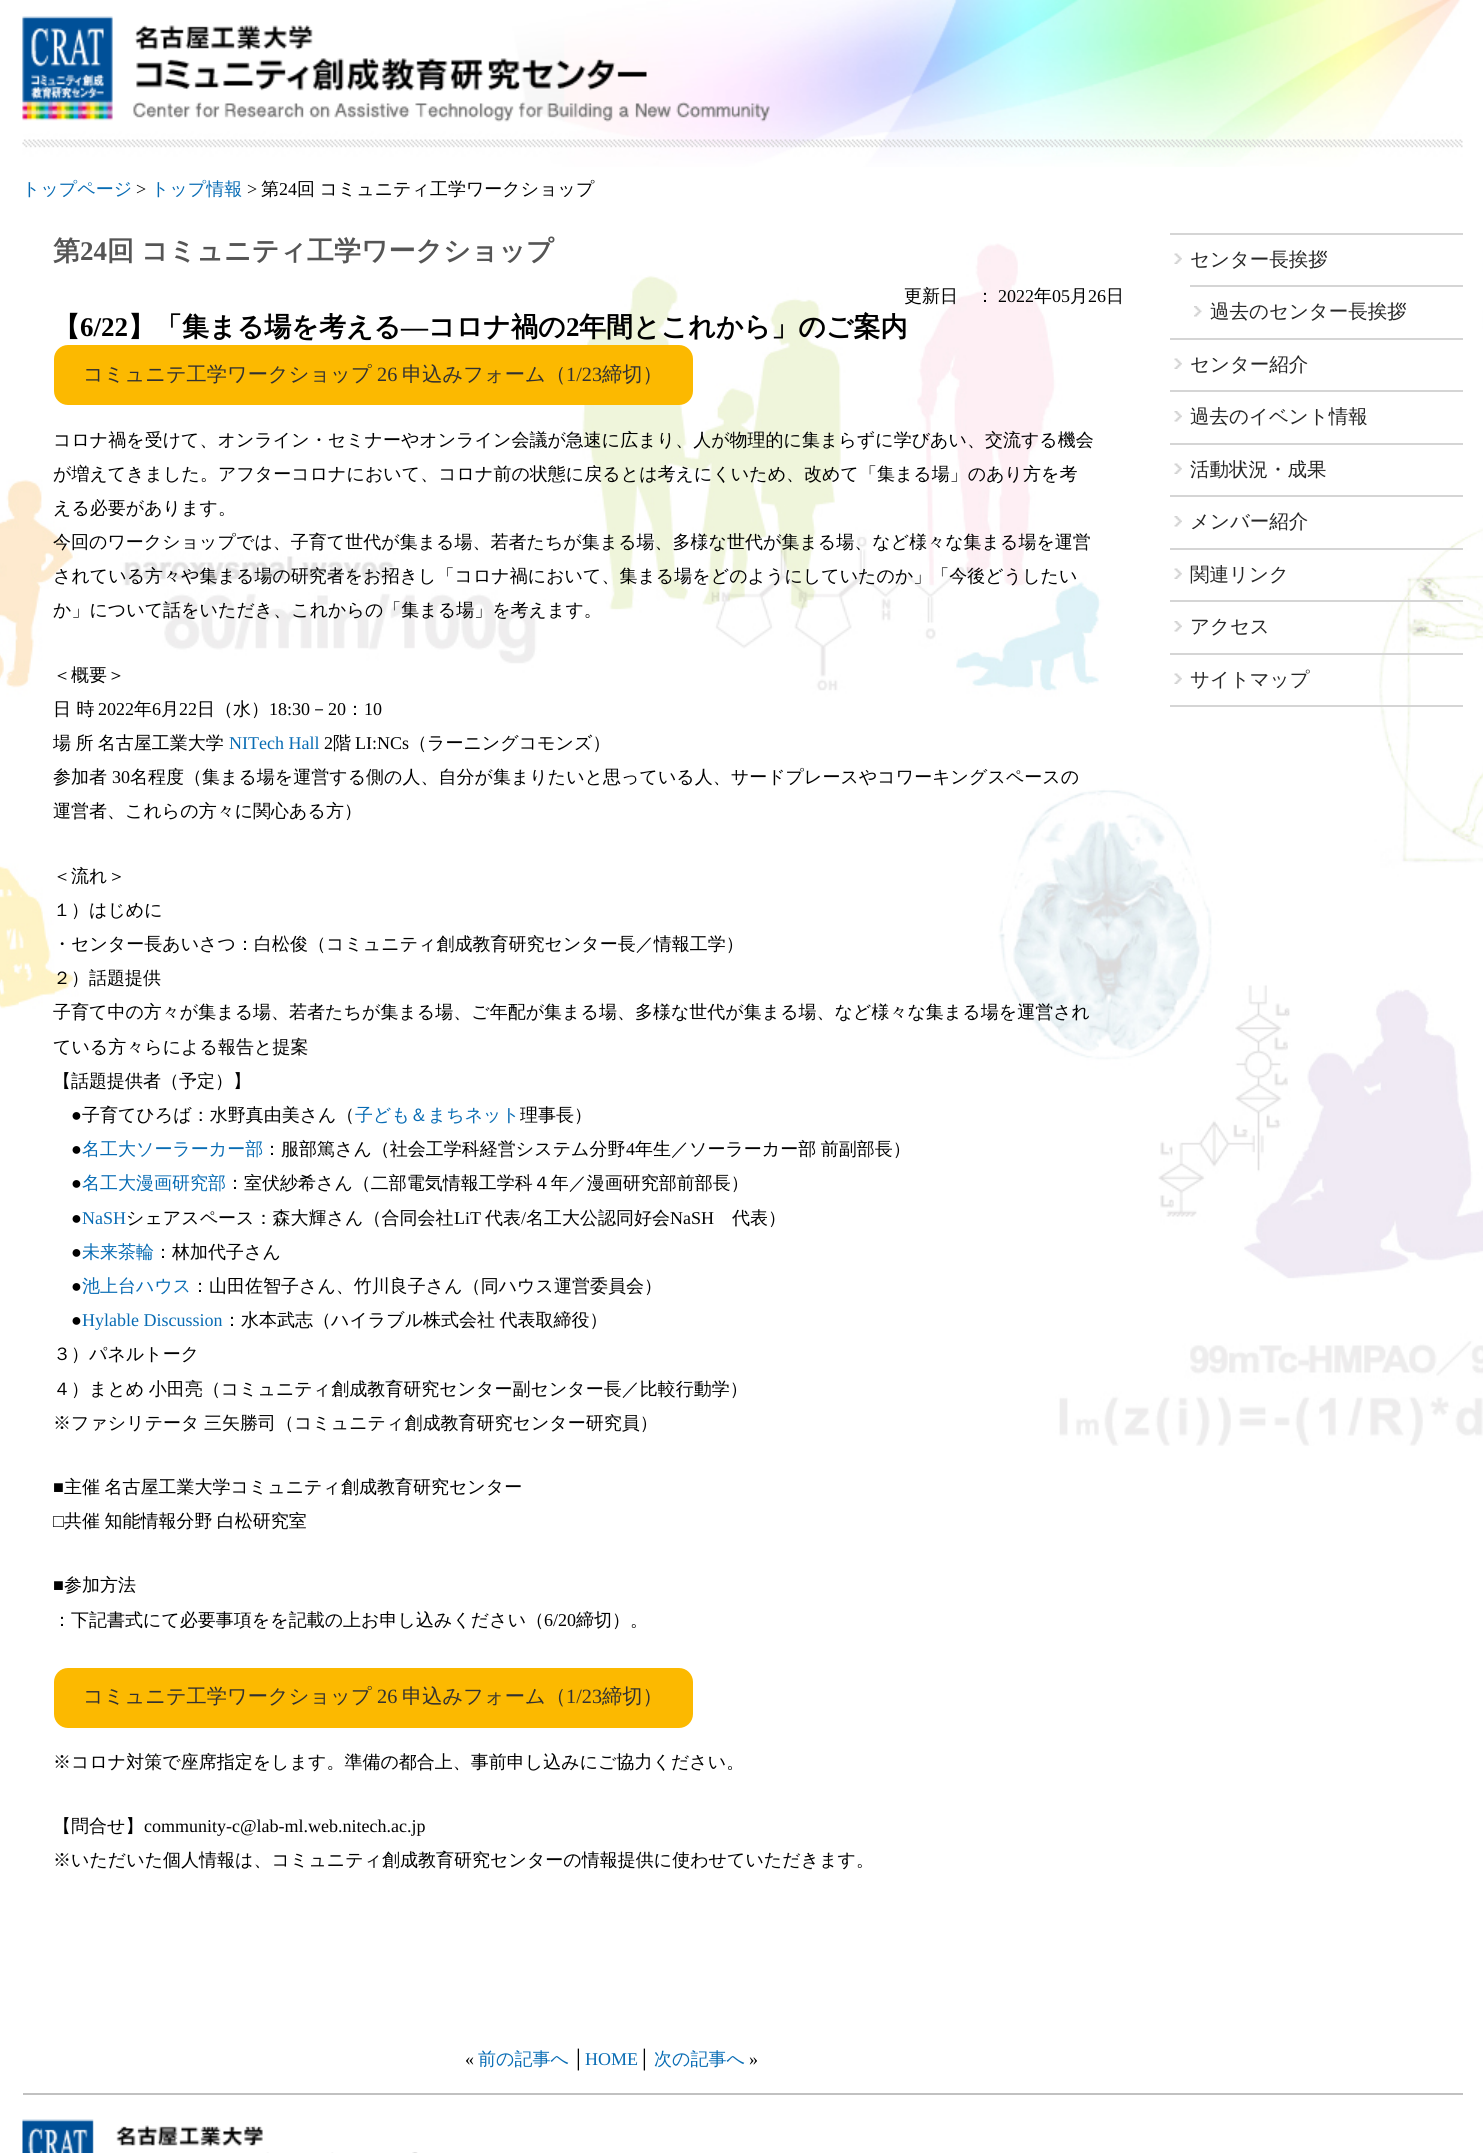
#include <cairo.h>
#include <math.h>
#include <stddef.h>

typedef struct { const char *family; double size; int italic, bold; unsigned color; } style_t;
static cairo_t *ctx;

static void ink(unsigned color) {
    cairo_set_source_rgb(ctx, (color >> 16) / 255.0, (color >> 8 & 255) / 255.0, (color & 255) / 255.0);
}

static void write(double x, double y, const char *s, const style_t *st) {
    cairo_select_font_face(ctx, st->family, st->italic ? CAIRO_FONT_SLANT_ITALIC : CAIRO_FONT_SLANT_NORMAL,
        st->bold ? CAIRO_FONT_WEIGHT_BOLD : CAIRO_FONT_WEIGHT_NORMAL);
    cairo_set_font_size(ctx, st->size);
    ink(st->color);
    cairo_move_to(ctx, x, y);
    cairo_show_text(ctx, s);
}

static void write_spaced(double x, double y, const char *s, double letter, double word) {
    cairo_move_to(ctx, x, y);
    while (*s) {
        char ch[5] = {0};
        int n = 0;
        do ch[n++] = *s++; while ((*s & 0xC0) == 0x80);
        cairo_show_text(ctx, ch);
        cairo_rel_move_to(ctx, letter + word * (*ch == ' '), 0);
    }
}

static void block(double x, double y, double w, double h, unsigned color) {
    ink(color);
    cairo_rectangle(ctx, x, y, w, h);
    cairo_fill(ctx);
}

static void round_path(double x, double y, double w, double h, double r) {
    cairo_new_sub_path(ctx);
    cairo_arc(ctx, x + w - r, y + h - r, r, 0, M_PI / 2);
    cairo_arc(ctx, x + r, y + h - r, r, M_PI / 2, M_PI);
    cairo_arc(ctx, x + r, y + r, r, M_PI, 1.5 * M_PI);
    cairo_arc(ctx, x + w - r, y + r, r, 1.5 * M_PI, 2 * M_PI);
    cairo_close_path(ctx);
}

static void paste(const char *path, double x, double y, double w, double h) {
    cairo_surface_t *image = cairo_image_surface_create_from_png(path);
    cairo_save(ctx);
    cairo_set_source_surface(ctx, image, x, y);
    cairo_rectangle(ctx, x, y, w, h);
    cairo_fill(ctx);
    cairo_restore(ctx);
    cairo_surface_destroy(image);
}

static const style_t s1 = {"WenQuanYi Zen Hei Medium", 18, 0, 0, 0x086cb4};
static const style_t s2 = {"Liberation Serif", 18, 0, 0, 0x000000};
static const style_t s3 = {"WenQuanYi Zen Hei Medium", 18, 0, 0, 0x000000};
static const style_t s4 = {"WenQuanYi Zen Hei", 27, 0, 1, 0x555555};
static const style_t s5 = {"Liberation Serif", 27, 0, 1, 0x555555};
static const style_t s6 = {"WenQuanYi Zen Hei", 27, 0, 1, 0x000000};
static const style_t s7 = {"Liberation Serif", 27, 0, 1, 0x000000};
static const style_t s8 = {"WenQuanYi Zen Hei Medium", 20.25, 0, 0, 0x313131};
static const style_t s9 = {"Liberation Serif", 20.25, 0, 0, 0x313131};
static const style_t s10 = {"Liberation Serif", 18, 0, 0, 0x086cb4};
static const style_t s11 = {"WenQuanYi Zen Hei Medium", 19.5, 0, 0, 0x262626};

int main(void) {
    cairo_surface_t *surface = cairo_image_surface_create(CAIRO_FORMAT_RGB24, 1483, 2153);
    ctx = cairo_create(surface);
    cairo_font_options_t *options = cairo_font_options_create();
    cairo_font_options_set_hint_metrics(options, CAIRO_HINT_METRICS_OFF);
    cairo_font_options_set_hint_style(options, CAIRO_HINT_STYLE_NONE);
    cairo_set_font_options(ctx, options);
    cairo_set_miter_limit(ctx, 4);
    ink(0xffffff);
    cairo_paint(ctx);
    paste("pic1.png", 0, 243, 1483, 1203);
    paste("pic2.png", 22, 0, 1441, 167);
    paste("pic3.png", 22, 16, 748, 106);
    write(22, 195, "トップページ", &s1);
    write(136, 195, ">", &s2);
    write(151, 195, "トップ情報", &s1);
    write(247, 195, ">", &s2);
    write(261, 195, "第", &s3);
    write(279, 195, "24", &s2);
    cairo_select_font_face(ctx, "WenQuanYi Zen Hei Medium", CAIRO_FONT_SLANT_NORMAL, CAIRO_FONT_WEIGHT_NORMAL);
    write_spaced(297, 195, "回 コミュニティ工学ワークショップ", 0, -1);
    write(53, 260, "第", &s4);
    write(80, 260, "24", &s5);
    cairo_select_font_face(ctx, "WenQuanYi Zen Hei", CAIRO_FONT_SLANT_NORMAL, CAIRO_FONT_WEIGHT_BOLD);
    write_spaced(107, 260, "回 コミュニティ工学ワークショップ", 0, -1);
    write(904, 302, "更新日　：", &s3);
    write(998, 302, "2022", &s2);
    write(1034, 302, "年", &s3);
    write(1052, 302, "05", &s2);
    write(1070, 302, "月", &s3);
    write(1088, 302, "26", &s2);
    write(1106, 302, "日", &s3);
    write(53, 336, "【", &s6);
    write(80, 336, "6/22", &s7);
    write(128, 336, "】「集まる場を考える", &s6);
    write(401, 336, "―", &s7);
    write(428, 336, "コロナ禍の", &s6);
    write(566, 336, "2", &s7);
    write(579, 336, "年間とこれから」のご案内", &s6);
    ink(0xfcb900);
    round_path(54, 345, 639, 60, 14);
    cairo_fill(ctx);
    write(83, 381, "コミュニテ工学ワークショップ", &s8);
    write(377, 381, "26", &s9);
    write(402, 381, "申込みフォーム（", &s8);
    write(566, 381, "1/23", &s9);
    write(602, 381, "締切）", &s8);
    write(53, 446, "コロナ禍を受けて、オンライン・セミナーやオンライン会議が急速に広まり、人が物理的に集まらずに学びあい、交流する機会", &s3);
    write(53, 480, "が増えてきました。アフターコロナにおいて、コロナ前の状態に戻るとは考えにくいため、改めて「集まる場」のあり方を考", &s3);
    write(53, 514, "える必要があります。", &s3);
    write(53, 548, "今回のワークショップでは、子育て世代が集まる場、若者たちが集まる場、多様な世代が集まる場、など様々な集まる場を運営", &s3);
    write(53, 582, "されている方々や集まる場の研究者をお招きし「コロナ禍において、集まる場をどのようにしていたのか」「今後どうしたい", &s3);
    write(53, 616, "か」について話をいただき、これからの「集まる場」を考えます。", &s3);
    write(53, 681, "＜概要＞", &s3);
    write(53, 715, "日 時", &s3);
    write(98, 715, "2022", &s2);
    write(134, 715, "年", &s3);
    write(152, 715, "6", &s2);
    write(161, 715, "月", &s3);
    write(179, 715, "22", &s2);
    write(197, 715, "日（水）", &s3);
    write(269, 715, "18:30", &s2);
    write(310, 715, "－", &s3);
    write(328, 715, "20", &s2);
    write(346, 715, "：", &s3);
    write(364, 715, "10", &s2);
    cairo_select_font_face(ctx, "WenQuanYi Zen Hei Medium", CAIRO_FONT_SLANT_NORMAL, CAIRO_FONT_WEIGHT_NORMAL);
    write_spaced(53, 749, "場 所 名古屋工業大学", 0, -1);
    write(229, 749, "NITech Hall", &s10);
    write(324, 749, "2", &s2);
    write(333, 749, "階", &s3);
    write(355, 749, "LI:NCs", &s2);
    write(409, 749, "（ラーニングコモンズ）", &s3);
    write(53, 783, "参加者", &s3);
    write(112, 783, "30", &s2);
    write(130, 783, "名程度（集まる場を運営する側の人、自分が集まりたいと思っている人、サードプレースやコワーキングスペースの", &s3);
    write(53, 817, "運営者、これらの方々に関心ある方）", &s3);
    write(53, 882, "＜流れ＞", &s3);
    write(53, 916, "１）はじめに", &s3);
    write(53, 950, "・センター長あいさつ：白松俊（コミュニティ創成教育研究センター長／情報工学）", &s3);
    write(53, 984, "２）話題提供", &s3);
    write(53, 1018, "子育て中の方々が集まる場、若者たちが集まる場、ご年配が集まる場、多様な世代が集まる場、など様々な集まる場を運営され", &s3);
    write(53, 1053, "ている方々らによる報告と提案", &s3);
    write(53, 1087, "【話題提供者（予定）】", &s3);
    write(71, 1121, "●", &s2);
    write(82, 1121, "子育てひろば：水野真由美さん（", &s3);
    write(355, 1121, "子ども＆まちネット", &s1);
    write(520, 1121, "理事長）", &s3);
    write(71, 1155, "●", &s2);
    write(82, 1155, "名工大ソーラーカー部", &s1);
    write(263, 1155, "：服部篤さん（社会工学科経営システム分野", &s3);
    write(626, 1155, "4", &s2);
    cairo_select_font_face(ctx, "WenQuanYi Zen Hei Medium", CAIRO_FONT_SLANT_NORMAL, CAIRO_FONT_WEIGHT_NORMAL);
    write_spaced(635, 1155, "年生／ソーラーカー部 前副部長）", 0, -1);
    write(71, 1189, "●", &s2);
    write(82, 1189, "名工大漫画研究部", &s1);
    write(226, 1189, "：室伏紗希さん（二部電気情報工学科４年／漫画研究部前部長）", &s3);
    write(71, 1224, "●", &s2);
    write(82, 1224, "NaSH", &s10);
    write(126, 1224, "シェアスペース：森大輝さん（合同会社", &s3);
    write(454, 1224, "LiT", &s2);
    write(485, 1224, "代表", &s3);
    write(521, 1224, "/", &s2);
    write(526, 1224, "名工大公認同好会", &s3);
    write(670, 1224, "NaSH", &s2);
    write(732, 1224, "代表）", &s3);
    write(71, 1258, "●", &s2);
    write(82, 1258, "未来茶輪", &s1);
    write(154, 1258, "：林加代子さん", &s3);
    write(71, 1292, "●", &s2);
    write(82, 1292, "池上台ハウス", &s1);
    write(191, 1292, "：山田佐智子さん、竹川良子さん（同ハウス運営委員会）", &s3);
    write(71, 1326, "●", &s2);
    write(82, 1326, "Hylable Discussion", &s10);
    cairo_select_font_face(ctx, "WenQuanYi Zen Hei Medium", CAIRO_FONT_SLANT_NORMAL, CAIRO_FONT_WEIGHT_NORMAL);
    ink(0x000000);
    write_spaced(223, 1326, "：水本武志（ハイラブル株式会社 代表取締役）", 0, -1);
    write(53, 1360, "３）パネルトーク", &s3);
    write_spaced(53, 1395, "４）まとめ 小田亮（コミュニティ創成教育研究センター副センター長／比較行動学）", 0, -1);
    write_spaced(53, 1429, "※ファシリテータ 三矢勝司（コミュニティ創成教育研究センター研究員）", 0, -1);
    write(53, 1493, "■", &s2);
    cairo_select_font_face(ctx, "WenQuanYi Zen Hei Medium", CAIRO_FONT_SLANT_NORMAL, CAIRO_FONT_WEIGHT_NORMAL);
    write_spaced(64, 1493, "主催 名古屋工業大学コミュニティ創成教育研究センター", 0, -1);
    write(53, 1527, "□", &s2);
    cairo_select_font_face(ctx, "WenQuanYi Zen Hei Medium", CAIRO_FONT_SLANT_NORMAL, CAIRO_FONT_WEIGHT_NORMAL);
    write_spaced(64, 1527, "共催 知能情報分野 白松研究室", 0, -1);
    write(53, 1591, "■", &s2);
    write(64, 1591, "参加方法", &s3);
    write(53, 1626, "：下記書式にて必要事項をを記載の上お申し込みください（", &s3);
    write(544, 1626, "6/20", &s2);
    write(576, 1626, "締切）。", &s3);
    ink(0xfcb900);
    round_path(54, 1668, 639, 60, 14);
    cairo_fill(ctx);
    write(83, 1703, "コミュニテ工学ワークショップ", &s8);
    write(377, 1703, "26", &s9);
    write(402, 1703, "申込みフォーム（", &s8);
    write(566, 1703, "1/23", &s9);
    write(602, 1703, "締切）", &s8);
    write(53, 1768, "※コロナ対策で座席指定をします。準備の都合上、事前申し込みにご協力ください。", &s3);
    write(53, 1832, "【問合せ】", &s3);
    write(144, 1832, "community-c@lab-ml.web.nitech.ac.jp", &s2);
    write(53, 1866, "※いただいた個人情報は、コミュニティ創成教育研究センターの情報提供に使わせていただきます。", &s3);
    write(465, 2065, "«", &s2);
    write(478, 2065, "前の記事へ", &s1);
    write(572, 2065, "│", &s2);
    write(585, 2065, "HOME", &s10);
    write(638, 2065, "│", &s2);
    write(654, 2065, "次の記事へ", &s1);
    write(749, 2065, "»", &s2);
    block(1170, 233, 293, 2, 0xd5d5d5);
    block(1170, 338, 293, 2, 0xd5d5d5);
    paste("pic4.png", 1174, 253, 8, 11);
    write(1190, 266, "センター長挨拶", &s11);
    block(1190, 285, 273, 2, 0xd5d5d5);
    paste("pic5.png", 1194, 306, 8, 11);
    write(1210, 318, "過去のセンター長挨拶", &s11);
    block(1170, 390, 293, 2, 0xd5d5d5);
    paste("pic4.png", 1174, 358, 8, 11);
    write(1190, 371, "センター紹介", &s11);
    block(1170, 443, 293, 2, 0xd5d5d5);
    paste("pic6.png", 1174, 411, 8, 11);
    write(1190, 423, "過去のイベント情報", &s11);
    block(1170, 495, 293, 2, 0xd5d5d5);
    paste("pic4.png", 1174, 463, 8, 11);
    write(1190, 476, "活動状況・成果", &s11);
    block(1170, 548, 293, 2, 0xd5d5d5);
    paste("pic6.png", 1174, 516, 8, 11);
    write(1190, 528, "メンバー紹介", &s11);
    block(1170, 600, 293, 2, 0xd5d5d5);
    paste("pic4.png", 1174, 568, 8, 11);
    write(1190, 581, "関連リンク", &s11);
    block(1170, 653, 293, 2, 0xd5d5d5);
    paste("pic6.png", 1174, 621, 8, 11);
    write(1190, 633, "アクセス", &s11);
    block(1170, 705, 293, 2, 0xd5d5d5);
    paste("pic4.png", 1174, 673, 8, 11);
    write(1190, 686, "サイトマップ", &s11);
    block(23, 2093, 1440, 2, 0xc1c1c1);
    paste("pic7.png", 22, 2119, 396, 34);
    cairo_surface_write_to_png(surface, "screenshot.png");
    cairo_font_options_destroy(options);
    cairo_destroy(ctx);
    cairo_surface_destroy(surface);
    return 0;
}
